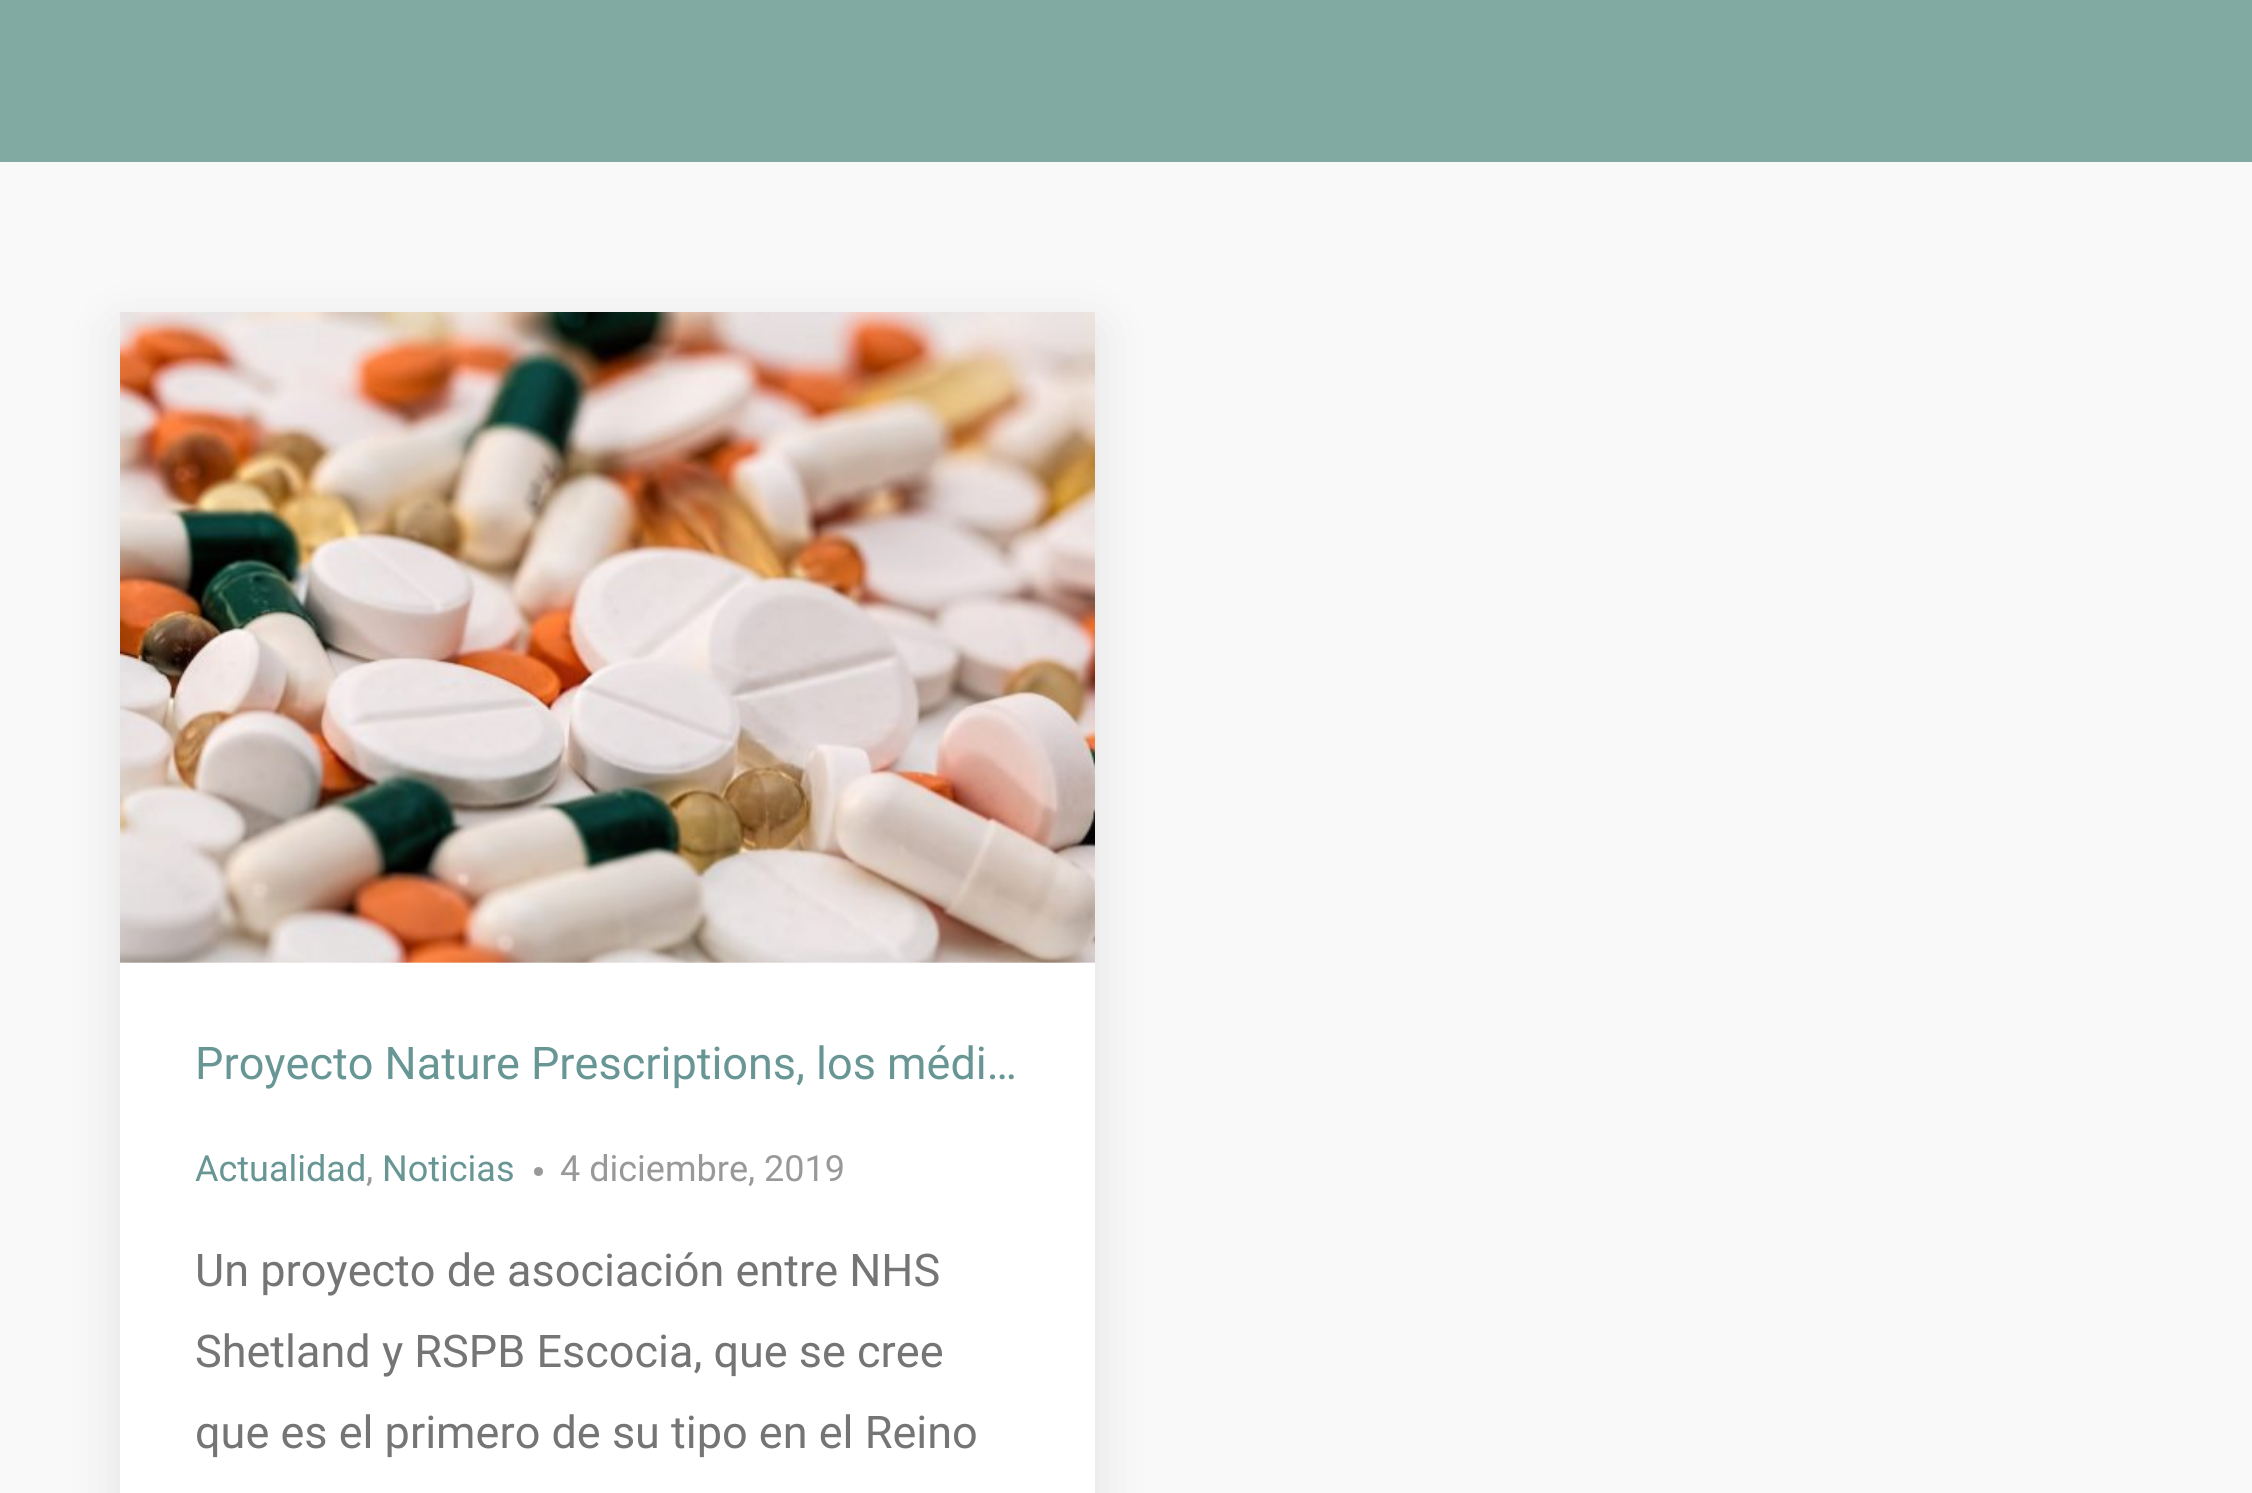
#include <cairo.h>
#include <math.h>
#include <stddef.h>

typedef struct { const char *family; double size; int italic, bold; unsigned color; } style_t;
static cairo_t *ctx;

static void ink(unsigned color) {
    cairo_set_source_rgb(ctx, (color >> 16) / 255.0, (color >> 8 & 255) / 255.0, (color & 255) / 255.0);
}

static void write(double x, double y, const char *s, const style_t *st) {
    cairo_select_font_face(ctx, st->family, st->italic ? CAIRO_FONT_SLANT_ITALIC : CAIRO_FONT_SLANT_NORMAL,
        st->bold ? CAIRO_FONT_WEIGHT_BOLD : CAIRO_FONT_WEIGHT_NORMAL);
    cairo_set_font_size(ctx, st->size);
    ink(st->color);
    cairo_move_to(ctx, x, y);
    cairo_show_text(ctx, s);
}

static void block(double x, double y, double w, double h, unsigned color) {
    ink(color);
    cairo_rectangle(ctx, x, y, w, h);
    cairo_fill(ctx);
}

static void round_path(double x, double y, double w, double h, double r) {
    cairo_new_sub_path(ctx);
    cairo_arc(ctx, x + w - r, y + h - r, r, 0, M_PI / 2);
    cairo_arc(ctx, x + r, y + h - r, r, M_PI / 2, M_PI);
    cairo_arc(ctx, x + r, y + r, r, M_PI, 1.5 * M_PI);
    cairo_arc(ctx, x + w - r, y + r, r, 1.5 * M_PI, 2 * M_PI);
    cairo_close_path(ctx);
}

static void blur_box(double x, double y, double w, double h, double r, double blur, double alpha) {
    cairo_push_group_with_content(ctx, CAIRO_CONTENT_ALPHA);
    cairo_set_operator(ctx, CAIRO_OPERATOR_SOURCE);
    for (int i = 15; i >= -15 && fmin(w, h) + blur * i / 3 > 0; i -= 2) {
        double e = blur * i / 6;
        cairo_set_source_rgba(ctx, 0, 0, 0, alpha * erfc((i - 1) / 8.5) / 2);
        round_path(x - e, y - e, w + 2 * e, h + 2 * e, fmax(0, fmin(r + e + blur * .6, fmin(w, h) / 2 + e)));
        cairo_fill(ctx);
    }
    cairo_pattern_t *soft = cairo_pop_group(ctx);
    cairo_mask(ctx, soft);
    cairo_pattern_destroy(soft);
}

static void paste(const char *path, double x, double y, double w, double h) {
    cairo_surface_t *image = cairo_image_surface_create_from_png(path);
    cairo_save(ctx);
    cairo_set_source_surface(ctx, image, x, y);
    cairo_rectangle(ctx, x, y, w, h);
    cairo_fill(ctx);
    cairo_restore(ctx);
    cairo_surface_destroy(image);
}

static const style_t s1 = {"Roboto", 45, 0, 0, 0x679694};
static const style_t s2 = {"Roboto", 36, 0, 0, 0x679694};
static const style_t s3 = {"Roboto", 36, 0, 0, 0x999999};
static const style_t s4 = {"Roboto", 45, 0, 0, 0x757575};

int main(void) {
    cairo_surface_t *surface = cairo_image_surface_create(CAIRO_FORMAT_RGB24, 2252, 1493);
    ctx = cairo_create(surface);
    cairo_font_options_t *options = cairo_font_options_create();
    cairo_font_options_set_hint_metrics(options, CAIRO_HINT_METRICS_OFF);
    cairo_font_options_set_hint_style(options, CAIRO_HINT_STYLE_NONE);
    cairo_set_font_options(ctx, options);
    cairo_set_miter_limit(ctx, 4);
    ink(0xf9f9f9);
    cairo_paint(ctx);
    block(0, 0, 2252, 162, 0x80aaa2);
    ink(0x000000);
    blur_box(120, 330, 975, 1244, 0, 27, 0.1);
    block(120, 962, 975, 531, 0xffffff);
    paste("pic1.png", 120, 312, 975, 651);
    write(195, 1079, "Proyecto Nature Prescriptions, los médi…", &s1);
    write(195, 1181, "Actualidad", &s2);
    write(382, 1181, "Noticias", &s2);
    ink(0x999999);
    cairo_new_path(ctx);
    cairo_arc(ctx, 538.5, 1171.5, 4.5, 0, 2 * M_PI);
    cairo_fill(ctx);
    write(366, 1181, ",", &s3);
    write(560, 1181, "4 diciembre, 2019", &s3);
    write(195, 1286, "Un proyecto de asociación entre NHS", &s4);
    write(195, 1367, "Shetland y RSPB Escocia, que se cree", &s4);
    write(195, 1448, "que es el primero de su tipo en el Reino", &s4);
    cairo_surface_write_to_png(surface, "screenshot.png");
    cairo_font_options_destroy(options);
    cairo_destroy(ctx);
    cairo_surface_destroy(surface);
    return 0;
}
